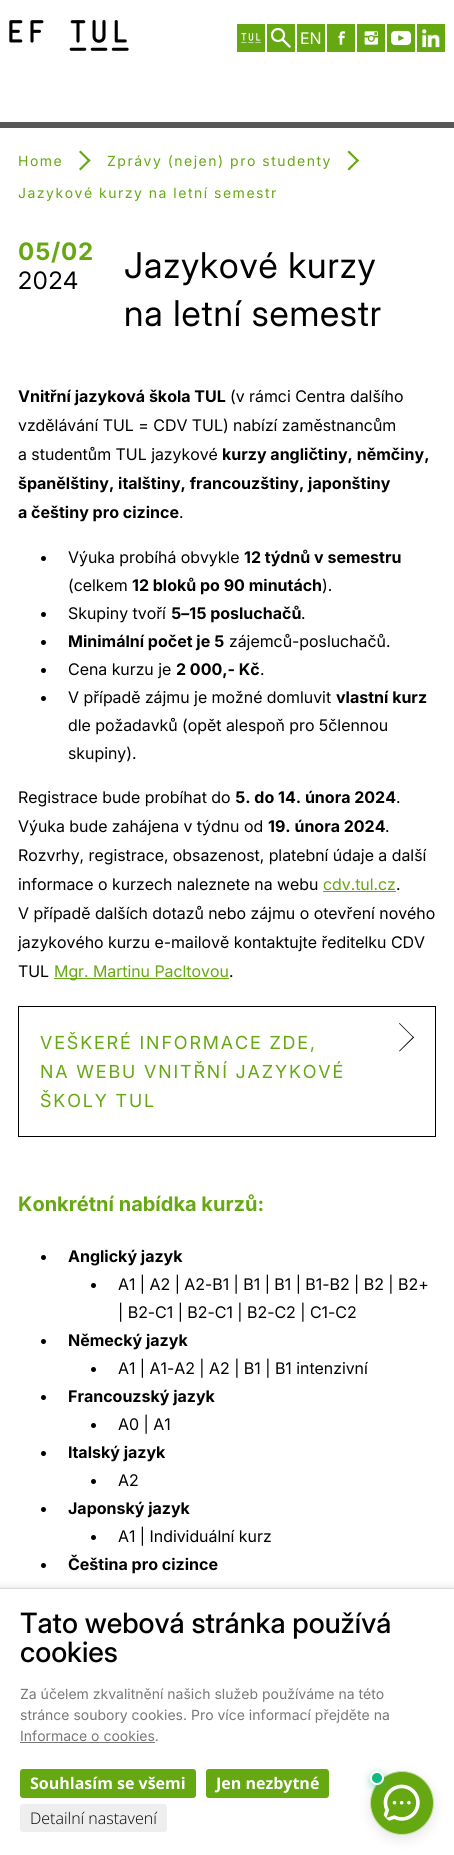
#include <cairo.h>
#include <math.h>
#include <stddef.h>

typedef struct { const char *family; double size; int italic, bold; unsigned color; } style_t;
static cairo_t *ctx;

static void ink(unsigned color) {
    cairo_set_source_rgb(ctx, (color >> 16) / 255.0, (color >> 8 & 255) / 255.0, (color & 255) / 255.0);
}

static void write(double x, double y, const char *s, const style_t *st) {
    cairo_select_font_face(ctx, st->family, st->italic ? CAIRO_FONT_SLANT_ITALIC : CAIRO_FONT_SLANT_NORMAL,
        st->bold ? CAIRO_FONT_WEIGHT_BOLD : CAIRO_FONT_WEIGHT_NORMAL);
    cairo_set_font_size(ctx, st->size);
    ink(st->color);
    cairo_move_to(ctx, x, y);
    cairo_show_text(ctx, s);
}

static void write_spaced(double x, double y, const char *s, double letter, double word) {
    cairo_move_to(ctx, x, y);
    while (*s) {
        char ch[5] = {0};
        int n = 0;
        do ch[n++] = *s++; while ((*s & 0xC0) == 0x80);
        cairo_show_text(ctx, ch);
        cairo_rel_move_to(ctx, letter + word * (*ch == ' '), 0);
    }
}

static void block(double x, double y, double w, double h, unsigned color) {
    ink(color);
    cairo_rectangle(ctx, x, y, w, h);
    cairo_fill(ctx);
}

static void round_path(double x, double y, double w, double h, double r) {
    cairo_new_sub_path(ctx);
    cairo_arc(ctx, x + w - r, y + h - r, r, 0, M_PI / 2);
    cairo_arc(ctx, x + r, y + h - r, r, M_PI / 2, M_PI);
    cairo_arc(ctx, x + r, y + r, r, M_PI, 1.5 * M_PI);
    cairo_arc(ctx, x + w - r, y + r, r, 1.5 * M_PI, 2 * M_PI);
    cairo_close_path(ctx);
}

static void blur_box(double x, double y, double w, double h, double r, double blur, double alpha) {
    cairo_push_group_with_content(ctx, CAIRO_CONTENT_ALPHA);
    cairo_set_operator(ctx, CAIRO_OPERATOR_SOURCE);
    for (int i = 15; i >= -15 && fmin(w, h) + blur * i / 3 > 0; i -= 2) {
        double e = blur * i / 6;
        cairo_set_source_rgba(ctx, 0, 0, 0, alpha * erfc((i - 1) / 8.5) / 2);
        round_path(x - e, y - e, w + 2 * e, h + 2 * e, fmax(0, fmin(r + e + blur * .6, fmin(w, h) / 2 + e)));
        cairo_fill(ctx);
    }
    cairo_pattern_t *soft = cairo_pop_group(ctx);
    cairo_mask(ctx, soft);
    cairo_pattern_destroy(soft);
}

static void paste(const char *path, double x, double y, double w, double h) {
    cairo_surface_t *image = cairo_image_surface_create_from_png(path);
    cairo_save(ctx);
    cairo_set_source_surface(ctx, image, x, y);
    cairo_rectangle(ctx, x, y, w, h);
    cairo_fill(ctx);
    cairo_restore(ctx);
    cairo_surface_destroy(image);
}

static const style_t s1 = {"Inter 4", 16, 0, 0, 0xffffff};
static const style_t s2 = {"Inter", 16, 0, 1, 0x000000};
static const style_t s3 = {"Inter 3", 16, 0, 0, 0x000000};
static const style_t s4 = {"Inter 3", 16, 0, 0, 0x65a812};
static const style_t s5 = {"Inter", 20, 0, 1, 0x65a812};
static const style_t s6 = {"Inter Medium", 28, 0, 0, 0x000000};
static const style_t s7 = {"Inter 4", 14, 0, 0, 0x777777};
static const style_t s8 = {"Open Sans", 16, 0, 1, 0xffffff};
static const style_t s9 = {"Open Sans Light", 16, 0, 0, 0x000000};

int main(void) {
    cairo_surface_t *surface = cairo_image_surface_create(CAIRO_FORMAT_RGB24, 454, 1855);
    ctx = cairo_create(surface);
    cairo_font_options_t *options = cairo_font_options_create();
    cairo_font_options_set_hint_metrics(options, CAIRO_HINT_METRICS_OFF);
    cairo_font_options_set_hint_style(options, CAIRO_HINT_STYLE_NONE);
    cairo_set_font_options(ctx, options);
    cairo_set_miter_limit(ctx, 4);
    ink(0xffffff);
    cairo_paint(ctx);
    block(0, 122, 454, 6, 0x595758);
    paste("pic1.png", 9, 20, 120, 31);
    block(237, 24, 28, 28, 0x65a812);
    paste("pic2.png", 241, 33, 20, 10);
    block(267, 24, 28, 28, 0x65a812);
    cairo_arc(ctx, 278, 35, 6, 0, 2 * M_PI);
    ink(0xffffff);
    cairo_set_line_width(ctx, 2.2);
    cairo_stroke(ctx);
    cairo_new_path(ctx);
    cairo_move_to(ctx, 283, 40);
    cairo_line_to(ctx, 289.5, 46.5);
    cairo_set_line_cap(ctx, CAIRO_LINE_CAP_SQUARE);
    cairo_stroke(ctx);
    block(297, 24, 28, 28, 0x65a812);
    write(300, 44, "EN", &s1);
    block(327, 24, 28, 28, 0x65a812);
    paste("pic3.png", 338, 31, 8, 14);
    block(357, 24, 28, 28, 0x65a812);
    paste("pic4.png", 364, 31, 14, 14);
    block(387, 24, 28, 28, 0x65a812);
    paste("pic5.png", 391, 30, 20, 16);
    block(417, 24, 28, 28, 0x65a812);
    paste("pic6.png", 422, 29, 18, 19);
    cairo_set_font_size(ctx, 14);
    write_spaced(18, 166, "Home", 1.5, 0);
    cairo_new_path(ctx);
    cairo_move_to(ctx, 79, 152);
    cairo_line_to(ctx, 80.5, 150.5);
    cairo_line_to(ctx, 90.5, 160.5);
    cairo_line_to(ctx, 89, 162);
    cairo_close_path(ctx);
    cairo_fill(ctx);
    cairo_new_path(ctx);
    cairo_move_to(ctx, 79, 169);
    cairo_line_to(ctx, 89, 159);
    cairo_line_to(ctx, 90.5, 160.5);
    cairo_line_to(ctx, 80.5, 170.5);
    cairo_close_path(ctx);
    cairo_fill(ctx);
    write_spaced(107, 166, "Zprávy (nejen) pro studenty", 1.5, 0);
    cairo_new_path(ctx);
    cairo_move_to(ctx, 347.5, 152);
    cairo_line_to(ctx, 349, 150.5);
    cairo_line_to(ctx, 359, 160.5);
    cairo_line_to(ctx, 357.5, 162);
    cairo_close_path(ctx);
    cairo_fill(ctx);
    cairo_new_path(ctx);
    cairo_move_to(ctx, 347.5, 169);
    cairo_line_to(ctx, 357.5, 159);
    cairo_line_to(ctx, 359, 160.5);
    cairo_line_to(ctx, 349, 170.5);
    cairo_close_path(ctx);
    cairo_fill(ctx);
    write_spaced(18, 198, "Jazykové kurzy na letní semestr", 1.5, 0);
    cairo_select_font_face(ctx, "Inter", CAIRO_FONT_SLANT_NORMAL, CAIRO_FONT_WEIGHT_BOLD);
    cairo_set_font_size(ctx, 24);
    write_spaced(18, 260, "05/02", 0.75, 0);
    cairo_select_font_face(ctx, "Inter", CAIRO_FONT_SLANT_NORMAL, CAIRO_FONT_WEIGHT_NORMAL);
    ink(0x000000);
    write_spaced(18, 289, "2024", 0.75, 0);
    cairo_select_font_face(ctx, "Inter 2", CAIRO_FONT_SLANT_NORMAL, CAIRO_FONT_WEIGHT_NORMAL);
    cairo_set_font_size(ctx, 35.5);
    write_spaced(124, 278, "Jazykové kurzy", 0.9, 0);
    write_spaced(124, 326, "na letní semestr", 0.9, 0);
    write(18, 402, "Vnitřní jazyková škola TUL", &s2);
    write(230, 402, "(v rámci Centra dalšího", &s3);
    write(18, 431, "vzdělávání TUL = CDV TUL) nabízí zaměstnancům", &s3);
    write(18, 460, "a studentům TUL jazykové", &s3);
    write(222, 460, "kurzy angličtiny, němčiny,", &s2);
    write(18, 489, "španělštiny, italštiny, francouzštiny, japonštiny", &s2);
    write(18, 518, "a češtiny pro cizince", &s2);
    write(179, 518, ".", &s3);
    cairo_new_path(ctx);
    cairo_arc(ctx, 43.5, 558.5, 2.5, 0, 2 * M_PI);
    cairo_fill(ctx);
    write(68, 563, "Výuka probíhá obvykle", &s3);
    write(244, 563, "12 týdnů v semestru", &s2);
    write(68, 591, "(celkem", &s3);
    write(132, 591, "12 bloků po 90 minutách", &s2);
    write(322, 591, ").", &s3);
    cairo_new_path(ctx);
    cairo_arc(ctx, 43.5, 614.5, 2.5, 0, 2 * M_PI);
    cairo_fill(ctx);
    write(68, 619, "Skupiny tvoří", &s3);
    write(171, 619, "5–15 posluchačů", &s2);
    write(301, 619, ".", &s3);
    cairo_new_path(ctx);
    cairo_arc(ctx, 43.5, 642.5, 2.5, 0, 2 * M_PI);
    cairo_fill(ctx);
    write(68, 647, "Minimální počet je 5", &s2);
    write(229, 647, "zájemců-posluchačů.", &s3);
    cairo_new_path(ctx);
    cairo_arc(ctx, 43.5, 670.5, 2.5, 0, 2 * M_PI);
    cairo_fill(ctx);
    write(68, 675, "Cena kurzu je", &s3);
    write(176, 675, "2 000,- Kč", &s2);
    write(260, 675, ".", &s3);
    cairo_new_path(ctx);
    cairo_arc(ctx, 43.5, 698.5, 2.5, 0, 2 * M_PI);
    cairo_fill(ctx);
    write(68, 703, "V případě zájmu je možné domluvit", &s3);
    write(336, 703, "vlastní kurz", &s2);
    write(68, 731, "dle požadavků (opět alespoň pro 5člennou", &s3);
    write(68, 759, "skupiny).", &s3);
    write(18, 803, "Registrace bude probíhat do", &s3);
    write(235, 803, "5. do 14. února 2024", &s2);
    write(396, 803, ".", &s3);
    write(18, 832, "Výuka bude zahájena v týdnu od", &s3);
    write(268, 832, "19. února 2024", &s2);
    write(385, 832, ".", &s3);
    write(18, 861, "Rozvrhy, registrace, obsazenost, platební údaje a další", &s3);
    write(18, 890, "informace o kurzech naleznete na webu", &s3);
    write(323, 890, "cdv.tul.cz", &s4);
    block(323, 891, 73, 1, 0x65a812);
    write(396, 890, ".", &s3);
    write(18, 919, "V případě dalších dotazů nebo zájmu o otevření nového", &s3);
    write(18, 948, "jazykového kurzu e-mailově kontaktujte ředitelku CDV", &s3);
    write(18, 977, "TUL", &s3);
    block(54, 978, 175, 1, 0x65a812);
    write(54, 977, "Mgr. Martinu Pacltovou", &s4);
    write(229, 977, ".", &s3);
    cairo_rectangle(ctx, 18.5, 1006.5, 417, 130);
    cairo_set_line_width(ctx, 1);
    cairo_set_line_cap(ctx, CAIRO_LINE_CAP_BUTT);
    cairo_stroke(ctx);
    cairo_select_font_face(ctx, "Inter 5", CAIRO_FONT_SLANT_NORMAL, CAIRO_FONT_WEIGHT_NORMAL);
    cairo_set_font_size(ctx, 18);
    ink(0x65a812);
    write_spaced(40, 1049, "VEŠKERÉ INFORMACE ZDE,", 1.9, 0);
    ink(0x000000);
    cairo_new_path(ctx);
    cairo_move_to(ctx, 399, 1023.5);
    cairo_line_to(ctx, 399.5, 1023);
    cairo_line_to(ctx, 414, 1037.5);
    cairo_line_to(ctx, 413.5, 1038);
    cairo_close_path(ctx);
    cairo_fill(ctx);
    cairo_new_path(ctx);
    cairo_move_to(ctx, 399, 1051);
    cairo_line_to(ctx, 413.5, 1036.5);
    cairo_line_to(ctx, 414, 1037.5);
    cairo_line_to(ctx, 399.5, 1051.5);
    cairo_close_path(ctx);
    cairo_fill(ctx);
    ink(0x65a812);
    write_spaced(40, 1078, "NA WEBU VNITŘNÍ JAZYKOVÉ", 1.9, 0);
    write_spaced(40, 1107, "ŠKOLY TUL", 1.9, 0);
    write(18, 1211, "Konkrétní nabídka kurzů:", &s5);
    ink(0x000000);
    cairo_new_path(ctx);
    cairo_arc(ctx, 43.5, 1257.5, 2.5, 0, 2 * M_PI);
    cairo_fill(ctx);
    write(68, 1262, "Anglický jazyk", &s2);
    cairo_new_path(ctx);
    cairo_arc(ctx, 93.5, 1285.5, 2.5, 0, 2 * M_PI);
    cairo_fill(ctx);
    write(118, 1290, "A1 | A2 | A2-B1 | B1 | B1 | B1-B2 | B2 | B2+", &s3);
    write(118, 1318, "| B2-C1 | B2-C1 | B2-C2 | C1-C2", &s3);
    cairo_new_path(ctx);
    cairo_arc(ctx, 43.5, 1341.5, 2.5, 0, 2 * M_PI);
    cairo_fill(ctx);
    write(68, 1346, "Německý jazyk", &s2);
    cairo_new_path(ctx);
    cairo_arc(ctx, 93.5, 1369.5, 2.5, 0, 2 * M_PI);
    cairo_fill(ctx);
    write(118, 1374, "A1 | A1-A2 | A2 | B1 | B1 intenzivní", &s3);
    cairo_new_path(ctx);
    cairo_arc(ctx, 43.5, 1397.5, 2.5, 0, 2 * M_PI);
    cairo_fill(ctx);
    write(68, 1402, "Francouzský jazyk", &s2);
    cairo_new_path(ctx);
    cairo_arc(ctx, 93.5, 1425.5, 2.5, 0, 2 * M_PI);
    cairo_fill(ctx);
    write(118, 1430, "A0 | A1", &s3);
    cairo_new_path(ctx);
    cairo_arc(ctx, 43.5, 1453.5, 2.5, 0, 2 * M_PI);
    cairo_fill(ctx);
    write(68, 1458, "Italský jazyk", &s2);
    cairo_new_path(ctx);
    cairo_arc(ctx, 93.5, 1481.5, 2.5, 0, 2 * M_PI);
    cairo_fill(ctx);
    write(118, 1486, "A2", &s3);
    cairo_new_path(ctx);
    cairo_arc(ctx, 43.5, 1509.5, 2.5, 0, 2 * M_PI);
    cairo_fill(ctx);
    write(68, 1514, "Japonský jazyk", &s2);
    cairo_new_path(ctx);
    cairo_arc(ctx, 93.5, 1537.5, 2.5, 0, 2 * M_PI);
    cairo_fill(ctx);
    write(118, 1542, "A1 | Individuální kurz", &s3);
    cairo_new_path(ctx);
    cairo_arc(ctx, 43.5, 1565.5, 2.5, 0, 2 * M_PI);
    cairo_fill(ctx);
    write(68, 1570, "Čeština pro cizince", &s2);
    ink(0x000000);
    blur_box(0, 1590, 454, 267, 0, 5, 0.2);
    block(0, 1589, 454, 266, 0xffffff);
    block(0, 1588, 454, 1, 0xd9d9d9);
    write(20, 1633, "Tato webová stránka používá", &s6);
    write(20, 1662, "cookies", &s6);
    write(20, 1699, "Za účelem zkvalitnění našich služeb používáme na této", &s7);
    write(20, 1720, "stránce soubory cookies. Pro více informací přejděte na", &s7);
    write(20, 1741, "Informace o cookies.", &s7);
    block(20, 1742, 135, 1, 0x777777);
    ink(0x65a812);
    round_path(20, 1769, 176, 29, 3);
    cairo_fill(ctx);
    write(30, 1789, "Souhlasím se všemi", &s8);
    ink(0x65a812);
    round_path(206, 1769, 123, 29, 3);
    cairo_fill(ctx);
    write(216, 1789, "Jen nezbytné", &s8);
    ink(0xeeeeee);
    round_path(20, 1804, 147, 28, 3);
    cairo_fill(ctx);
    write(30, 1824, "Detailní nastavení", &s9);
    ink(0x000000);
    blur_box(370, 1775, 64, 64, 32, 6, 0.1);
    ink(0x65a812);
    cairo_arc(ctx, 402, 1803, 31.5, 0, 2 * M_PI);
    cairo_fill_preserve(ctx);
    ink(0xc8e0a9);
    cairo_stroke(ctx);
    paste("pic7.png", 383, 1784, 37, 37);
    ink(0x10b981);
    blur_box(370, 1773, 14, 14, 7, 4, 0.4);
    ink(0x10b981);
    cairo_arc(ctx, 377, 1778, 6, 0, 2 * M_PI);
    cairo_fill_preserve(ctx);
    ink(0xffffff);
    cairo_set_line_width(ctx, 2);
    cairo_stroke(ctx);
    cairo_surface_write_to_png(surface, "screenshot.png");
    cairo_font_options_destroy(options);
    cairo_destroy(ctx);
    cairo_surface_destroy(surface);
    return 0;
}
